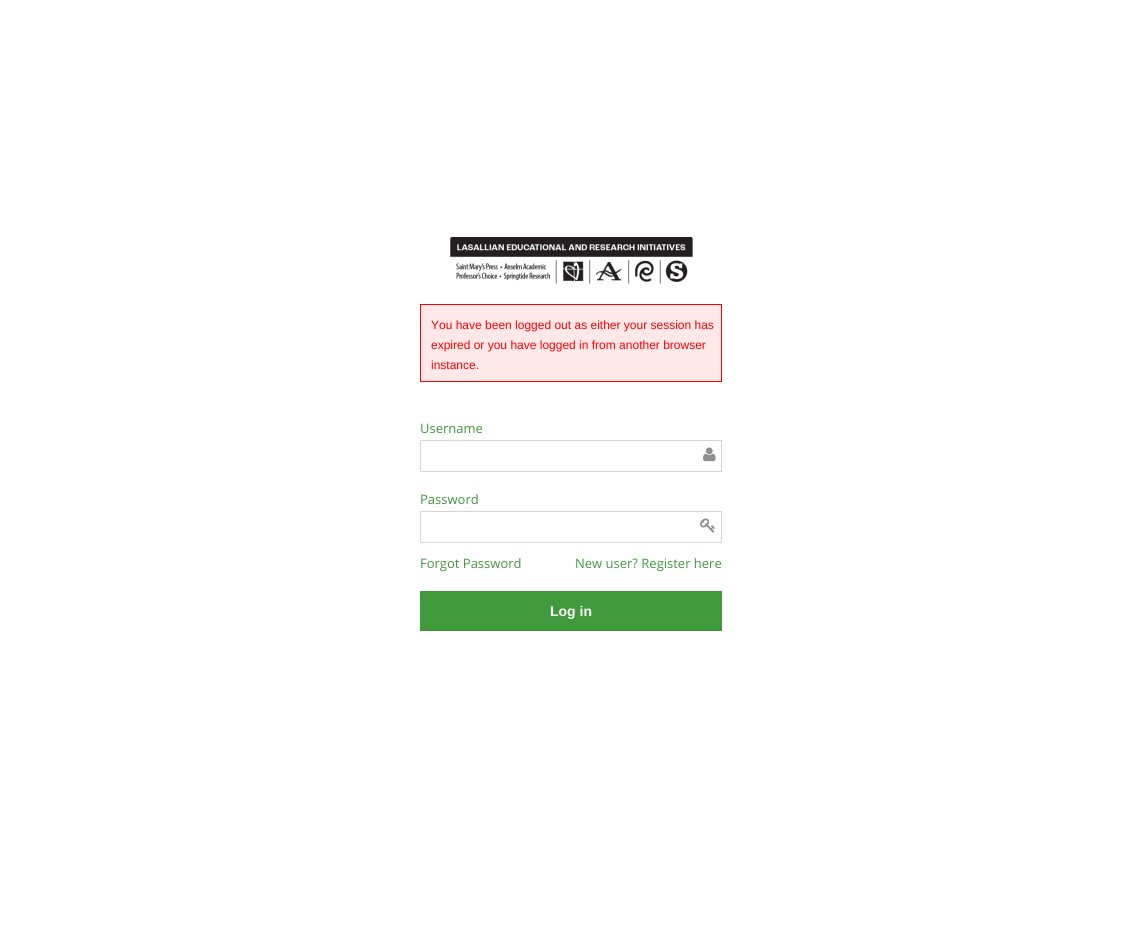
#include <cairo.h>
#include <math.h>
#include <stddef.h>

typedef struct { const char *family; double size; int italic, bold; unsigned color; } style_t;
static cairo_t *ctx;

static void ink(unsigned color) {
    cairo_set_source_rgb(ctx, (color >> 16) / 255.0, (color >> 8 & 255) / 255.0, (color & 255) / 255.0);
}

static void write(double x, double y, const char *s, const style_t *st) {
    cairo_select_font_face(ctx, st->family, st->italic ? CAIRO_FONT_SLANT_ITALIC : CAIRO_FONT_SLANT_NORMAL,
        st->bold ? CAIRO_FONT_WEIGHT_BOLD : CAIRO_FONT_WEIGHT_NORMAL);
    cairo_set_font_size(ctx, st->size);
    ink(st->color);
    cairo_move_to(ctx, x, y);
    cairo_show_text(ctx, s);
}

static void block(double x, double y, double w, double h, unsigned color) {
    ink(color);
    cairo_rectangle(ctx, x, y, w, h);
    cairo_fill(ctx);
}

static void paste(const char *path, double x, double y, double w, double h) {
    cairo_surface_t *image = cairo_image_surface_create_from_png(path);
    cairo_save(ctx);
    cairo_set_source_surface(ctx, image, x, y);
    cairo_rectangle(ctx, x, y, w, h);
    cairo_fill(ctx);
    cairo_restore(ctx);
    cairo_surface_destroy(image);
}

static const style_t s1 = {"Liberation Sans", 12, 0, 0, 0xff0000};
static const style_t s2 = {"Open Sans", 13, 0, 0, 0x409a3c};
static const style_t s3 = {"Liberation Sans", 14, 0, 1, 0xffffff};

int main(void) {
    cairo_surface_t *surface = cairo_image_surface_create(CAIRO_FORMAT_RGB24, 1142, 929);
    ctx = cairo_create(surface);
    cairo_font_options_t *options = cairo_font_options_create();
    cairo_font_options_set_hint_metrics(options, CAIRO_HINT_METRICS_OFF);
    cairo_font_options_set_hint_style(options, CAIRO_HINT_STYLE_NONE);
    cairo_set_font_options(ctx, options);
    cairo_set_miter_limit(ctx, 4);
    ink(0xffffff);
    cairo_paint(ctx);
    paste("pic1.png", 450, 237, 243, 47);
    ink(0xfee8e8);
    cairo_rectangle(ctx, 420.5, 304.5, 301, 77);
    cairo_fill_preserve(ctx);
    ink(0xff0000);
    cairo_set_line_width(ctx, 1);
    cairo_stroke(ctx);
    write(431, 329, "You have been logged out as either your session has", &s1);
    write(431, 349, "expired or you have logged in from another browser", &s1);
    write(431, 369, "instance.", &s1);
    write(420, 433, "Username", &s2);
    cairo_rectangle(ctx, 420.5, 440.5, 301, 31);
    ink(0xd5d5d5);
    cairo_stroke(ctx);
    paste("pic2.png", 703, 447, 13, 15);
    write(420, 504, "Password", &s2);
    cairo_rectangle(ctx, 420.5, 511.5, 301, 31);
    ink(0xd5d5d5);
    cairo_stroke(ctx);
    paste("pic3.png", 700, 518, 15, 15);
    write(420, 568, "Forgot Password", &s2);
    write(575, 568, "New user? Register here", &s2);
    block(420, 591, 302, 40, 0x409a3c);
    write(550, 616, "Log in", &s3);
    cairo_surface_write_to_png(surface, "screenshot.png");
    cairo_font_options_destroy(options);
    cairo_destroy(ctx);
    cairo_surface_destroy(surface);
    return 0;
}
